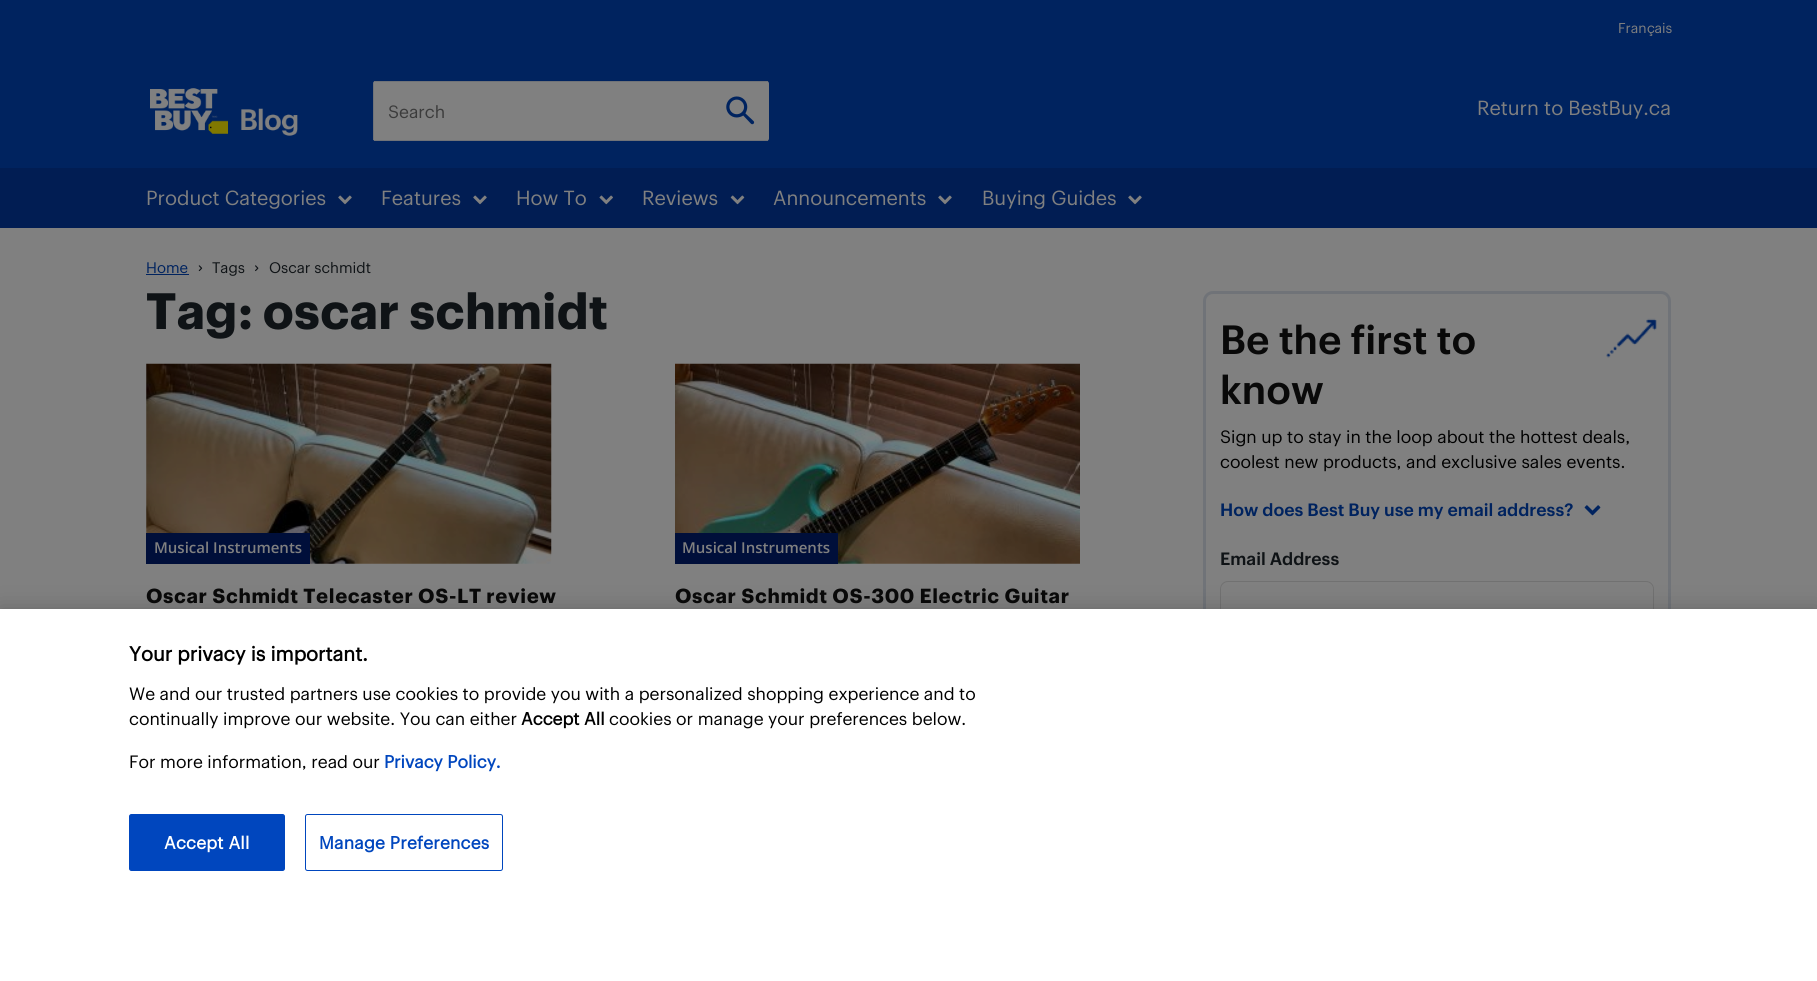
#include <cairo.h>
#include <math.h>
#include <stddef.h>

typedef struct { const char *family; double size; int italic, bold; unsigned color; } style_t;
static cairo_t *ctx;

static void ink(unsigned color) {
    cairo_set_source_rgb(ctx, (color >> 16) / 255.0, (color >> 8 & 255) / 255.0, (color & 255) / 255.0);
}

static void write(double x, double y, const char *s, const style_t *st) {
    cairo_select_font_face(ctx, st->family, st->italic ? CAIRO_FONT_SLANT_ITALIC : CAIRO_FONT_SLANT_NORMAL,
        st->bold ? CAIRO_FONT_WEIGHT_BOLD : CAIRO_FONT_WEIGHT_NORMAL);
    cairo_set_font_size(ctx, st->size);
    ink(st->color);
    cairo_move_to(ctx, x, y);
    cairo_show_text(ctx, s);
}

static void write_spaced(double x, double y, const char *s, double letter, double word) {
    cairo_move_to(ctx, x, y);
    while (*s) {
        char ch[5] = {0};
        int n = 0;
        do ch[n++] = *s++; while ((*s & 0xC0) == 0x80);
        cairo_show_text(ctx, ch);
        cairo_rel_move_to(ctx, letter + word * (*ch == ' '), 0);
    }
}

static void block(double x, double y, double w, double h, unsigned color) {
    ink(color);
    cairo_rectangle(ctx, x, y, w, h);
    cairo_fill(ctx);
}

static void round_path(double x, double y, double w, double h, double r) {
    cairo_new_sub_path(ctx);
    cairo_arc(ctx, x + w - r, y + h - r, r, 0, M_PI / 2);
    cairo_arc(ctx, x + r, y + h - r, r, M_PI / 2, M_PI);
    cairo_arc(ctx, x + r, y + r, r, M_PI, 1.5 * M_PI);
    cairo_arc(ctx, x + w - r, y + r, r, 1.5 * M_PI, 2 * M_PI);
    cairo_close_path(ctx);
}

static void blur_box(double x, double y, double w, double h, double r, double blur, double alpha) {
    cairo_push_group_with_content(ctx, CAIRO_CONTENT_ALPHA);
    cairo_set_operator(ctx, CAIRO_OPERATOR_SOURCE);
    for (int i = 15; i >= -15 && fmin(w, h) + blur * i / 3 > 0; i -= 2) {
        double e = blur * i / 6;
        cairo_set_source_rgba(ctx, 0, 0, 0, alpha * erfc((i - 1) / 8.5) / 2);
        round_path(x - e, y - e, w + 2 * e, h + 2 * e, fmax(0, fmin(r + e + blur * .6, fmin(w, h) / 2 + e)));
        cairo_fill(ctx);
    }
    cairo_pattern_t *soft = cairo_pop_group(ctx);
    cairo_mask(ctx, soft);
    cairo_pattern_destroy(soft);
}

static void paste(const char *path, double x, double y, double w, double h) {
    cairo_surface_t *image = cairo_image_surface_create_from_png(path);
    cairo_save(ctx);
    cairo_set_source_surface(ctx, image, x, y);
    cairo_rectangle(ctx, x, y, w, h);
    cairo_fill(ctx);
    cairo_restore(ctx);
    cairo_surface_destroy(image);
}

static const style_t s1 = {"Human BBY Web", 14, 0, 0, 0x808080};
static const style_t s2 = {"Human BBY Web", 17.5, 0, 0, 0x3b3b3b};
static const style_t s3 = {"Human BBY Web", 20, 0, 0, 0x808080};
static const style_t s4 = {"Human BBY Web", 15, 0, 0, 0x00235f};
static const style_t s5 = {"Human BBY Web", 15, 0, 0, 0x0f1316};
static const style_t s6 = {"Human BBY Web", 50, 0, 1, 0x0f1316};
static const style_t s7 = {"Open Sans SemiBold", 15, 0, 0, 0x808080};
static const style_t s8 = {"Human BBY Web Medium", 40, 0, 0, 0x090909};
static const style_t s9 = {"Human BBY Web", 17.5, 0, 0, 0x000000};
static const style_t s10 = {"Human BBY Web Medium", 17.5, 0, 0, 0x00235f};
static const style_t s11 = {"Human BBY Web Medium", 17.5, 0, 0, 0x0f1316};
static const style_t s12 = {"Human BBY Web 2", 20, 0, 1, 0x000000};
static const style_t s13 = {"Human BBY Web 2", 17.5, 0, 1, 0x000000};
static const style_t s14 = {"Human BBY Web 2", 17.5, 0, 1, 0x0046be};

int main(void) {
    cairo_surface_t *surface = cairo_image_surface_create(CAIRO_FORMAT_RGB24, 1817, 981);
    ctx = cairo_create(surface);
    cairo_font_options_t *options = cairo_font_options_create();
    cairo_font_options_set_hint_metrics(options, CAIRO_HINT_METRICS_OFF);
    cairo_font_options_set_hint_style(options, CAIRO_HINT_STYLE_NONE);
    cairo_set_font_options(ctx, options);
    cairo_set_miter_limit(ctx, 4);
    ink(0x808080);
    cairo_paint(ctx);
    block(0, 0, 1817, 168, 0x00235f);
    write(1618, 33, "Français", &s1);
    paste("pic1.png", 150, 88, 148, 48);
    round_path(373, 81, 396, 60, 2.5);
    cairo_fill(ctx);
    block(374, 81, 394, 1, 0x707378);
    block(374, 140, 394, 1, 0x707378);
    block(373, 83, 1, 57, 0x707378);
    write(388, 118, "Search", &s2);
    paste("pic2.png", 726, 96, 29, 29);
    write(1477, 115, "Return to BestBuy.ca", &s3);
    block(0, 168, 1817, 60, 0x011d53);
    write(146, 205, "Product Categories", &s3);
    paste("pic3.png", 338, 195, 14, 10);
    write(381, 205, "Features", &s3);
    paste("pic3.png", 473, 195, 14, 10);
    write(516, 205, "How To", &s3);
    paste("pic4.png", 599, 195, 14, 10);
    write(642, 205, "Reviews", &s3);
    paste("pic5.png", 730, 195, 15, 10);
    write(773, 205, "Announcements", &s3);
    paste("pic3.png", 938, 195, 14, 10);
    write(982, 205, "Buying Guides", &s3);
    paste("pic3.png", 1128, 195, 14, 10);
    write(146, 273, "Home", &s4);
    block(146, 274, 43, 1, 0x00235f);
    paste("pic6.png", 198, 265, 5, 7);
    write(212, 273, "Tags", &s5);
    paste("pic7.png", 255, 265, 4, 7);
    write(269, 273, "Oscar schmidt", &s5);
    write(146, 329, "Tag: oscar schmidt", &s6);
    paste("pic8.png", 146, 363, 406, 201);
    block(146, 533, 164, 31, 0x000f3a);
    write(154, 553, "Musical Instruments", &s7);
    cairo_select_font_face(ctx, "Human BBY Web", CAIRO_FONT_SLANT_NORMAL, CAIRO_FONT_WEIGHT_BOLD);
    cairo_set_font_size(ctx, 20);
    ink(0x090909);
    write_spaced(146, 603, "Oscar Schmidt Telecaster OS-LT review", 0.6, 0);
    paste("pic9.png", 675, 363, 405, 201);
    block(675, 533, 163, 31, 0x000f3a);
    write(682, 553, "Musical Instruments", &s7);
    cairo_select_font_face(ctx, "Human BBY Web", CAIRO_FONT_SLANT_NORMAL, CAIRO_FONT_WEIGHT_BOLD);
    cairo_set_font_size(ctx, 20);
    ink(0x090909);
    write_spaced(675, 603, "Oscar Schmidt OS-300 Electric Guitar", 0.6, 0);
    round_path(1204.5, 292.5, 465, 440, 8.5);
    ink(0x707378);
    cairo_set_line_width(ctx, 3);
    cairo_stroke(ctx);
    write(1220, 354, "Be the first to", &s8);
    paste("pic10.png", 1606, 318, 51, 40);
    write(1220, 404, "know", &s8);
    write(1220, 443, "Sign up to stay in the loop about the hottest deals,", &s9);
    write(1220, 468, "coolest new products, and exclusive sales events.", &s9);
    write(1220, 516, "How does Best Buy use my email address?", &s10);
    paste("pic11.png", 1584, 505, 17, 11);
    write(1220, 565, "Email Address", &s11);
    round_path(1220.5, 581.5, 433, 49, 7.5);
    ink(0x717171);
    cairo_set_line_width(ctx, 1);
    cairo_stroke(ctx);
    ink(0x000000);
    blur_box(0, 609, 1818, 372, 0, 11, 0.2);
    block(0, 609, 1817, 372, 0xffffff);
    write(129, 661, "Your privacy is important.", &s12);
    write(129, 700, "We and our trusted partners use cookies to provide you with a personalized shopping experience and to", &s9);
    write(129, 725, "continually improve our website. You can either", &s9);
    write(521, 725, "Accept All", &s13);
    write(609, 725, "cookies or manage your preferences below.", &s9);
    write(129, 768, "For more information, read our", &s9);
    write(384, 768, "Privacy Policy.", &s14);
    round_path(129.5, 814.5, 155, 56, 2);
    cairo_fill_preserve(ctx);
    cairo_stroke(ctx);
    ink(0xffffff);
    write_spaced(164, 849, "Accept All", 0.2, 0);
    round_path(305.5, 814.5, 197, 56, 2);
    ink(0x0046be);
    cairo_stroke(ctx);
    write_spaced(319, 849, "Manage Preferences", 0.2, 0);
    cairo_surface_write_to_png(surface, "screenshot.png");
    cairo_font_options_destroy(options);
    cairo_destroy(ctx);
    cairo_surface_destroy(surface);
    return 0;
}
